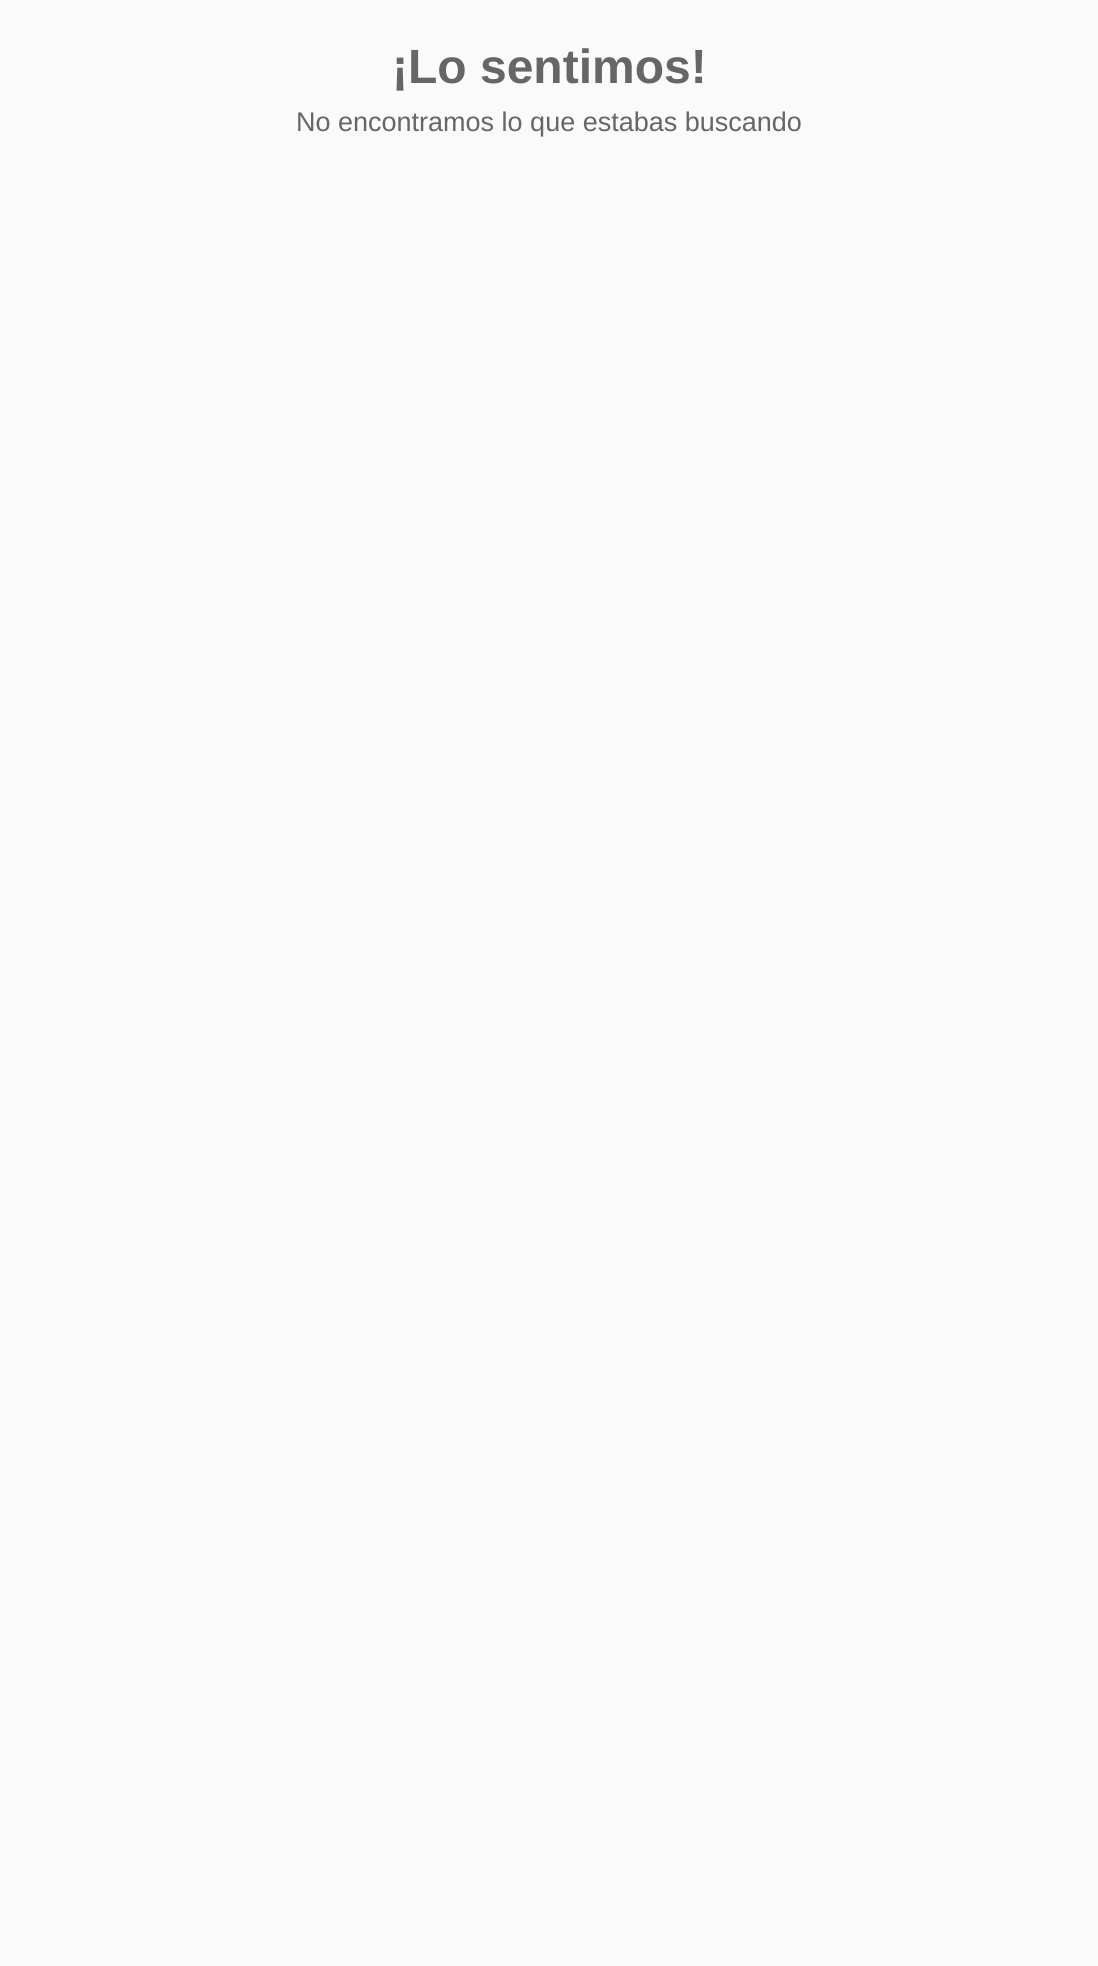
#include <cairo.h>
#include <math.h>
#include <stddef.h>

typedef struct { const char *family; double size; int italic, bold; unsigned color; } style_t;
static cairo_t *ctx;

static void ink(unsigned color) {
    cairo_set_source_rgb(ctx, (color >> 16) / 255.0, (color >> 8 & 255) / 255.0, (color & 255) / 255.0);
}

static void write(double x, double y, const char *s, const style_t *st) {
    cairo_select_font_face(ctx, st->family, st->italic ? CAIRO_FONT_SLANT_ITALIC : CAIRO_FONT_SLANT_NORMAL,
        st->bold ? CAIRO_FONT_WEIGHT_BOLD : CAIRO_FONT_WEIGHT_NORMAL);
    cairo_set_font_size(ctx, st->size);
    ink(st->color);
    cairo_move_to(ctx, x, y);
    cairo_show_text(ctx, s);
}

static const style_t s1 = {"Liberation Sans", 48, 0, 1, 0x666666};
static const style_t s2 = {"Liberation Sans", 27, 0, 0, 0x666666};

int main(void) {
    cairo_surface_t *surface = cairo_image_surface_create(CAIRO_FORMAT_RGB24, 1098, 1966);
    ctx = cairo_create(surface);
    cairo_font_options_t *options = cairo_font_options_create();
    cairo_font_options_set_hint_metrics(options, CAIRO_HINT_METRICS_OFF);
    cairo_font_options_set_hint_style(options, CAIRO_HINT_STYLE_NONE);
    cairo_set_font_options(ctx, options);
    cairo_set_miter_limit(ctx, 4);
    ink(0xfafafa);
    cairo_paint(ctx);
    write(392, 83, "¡Lo sentimos!", &s1);
    write(296, 131, "No encontramos lo que estabas buscando", &s2);
    cairo_surface_write_to_png(surface, "screenshot.png");
    cairo_font_options_destroy(options);
    cairo_destroy(ctx);
    cairo_surface_destroy(surface);
    return 0;
}
